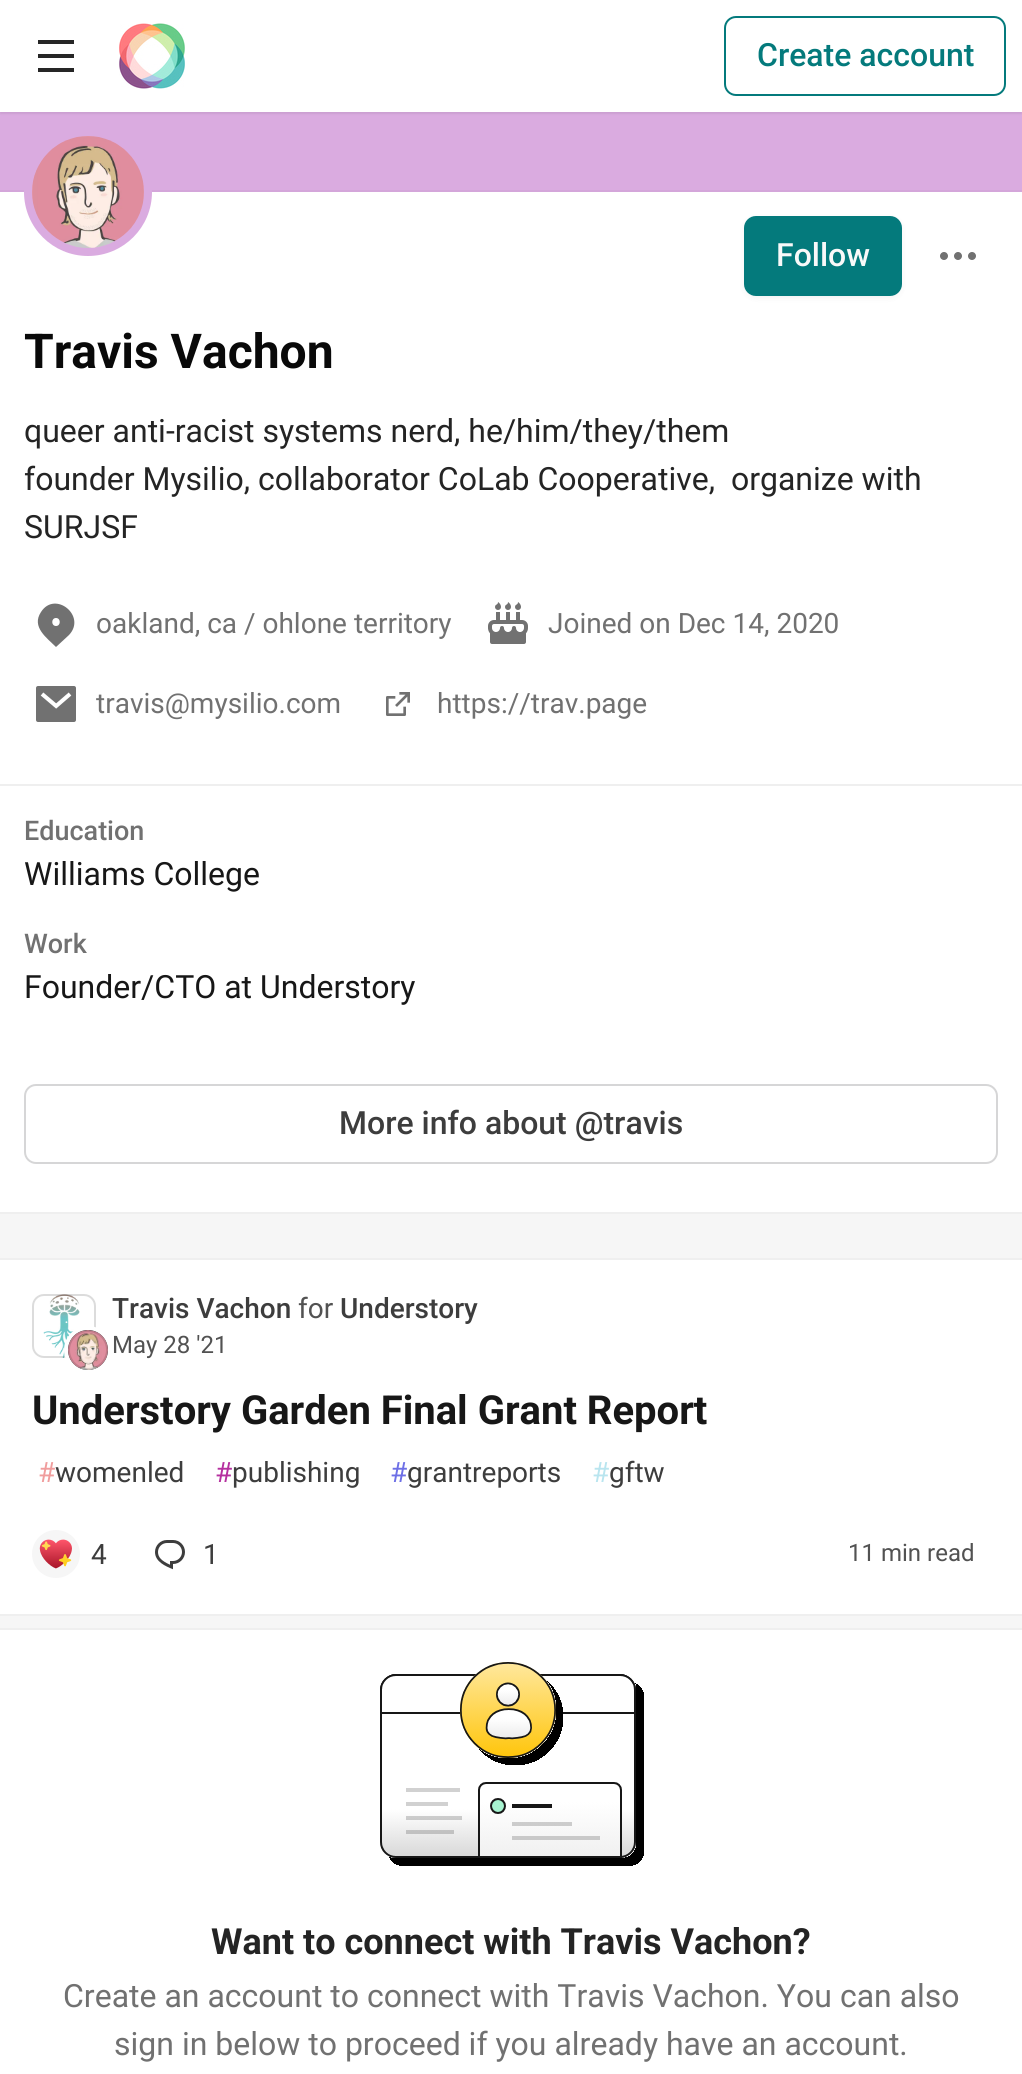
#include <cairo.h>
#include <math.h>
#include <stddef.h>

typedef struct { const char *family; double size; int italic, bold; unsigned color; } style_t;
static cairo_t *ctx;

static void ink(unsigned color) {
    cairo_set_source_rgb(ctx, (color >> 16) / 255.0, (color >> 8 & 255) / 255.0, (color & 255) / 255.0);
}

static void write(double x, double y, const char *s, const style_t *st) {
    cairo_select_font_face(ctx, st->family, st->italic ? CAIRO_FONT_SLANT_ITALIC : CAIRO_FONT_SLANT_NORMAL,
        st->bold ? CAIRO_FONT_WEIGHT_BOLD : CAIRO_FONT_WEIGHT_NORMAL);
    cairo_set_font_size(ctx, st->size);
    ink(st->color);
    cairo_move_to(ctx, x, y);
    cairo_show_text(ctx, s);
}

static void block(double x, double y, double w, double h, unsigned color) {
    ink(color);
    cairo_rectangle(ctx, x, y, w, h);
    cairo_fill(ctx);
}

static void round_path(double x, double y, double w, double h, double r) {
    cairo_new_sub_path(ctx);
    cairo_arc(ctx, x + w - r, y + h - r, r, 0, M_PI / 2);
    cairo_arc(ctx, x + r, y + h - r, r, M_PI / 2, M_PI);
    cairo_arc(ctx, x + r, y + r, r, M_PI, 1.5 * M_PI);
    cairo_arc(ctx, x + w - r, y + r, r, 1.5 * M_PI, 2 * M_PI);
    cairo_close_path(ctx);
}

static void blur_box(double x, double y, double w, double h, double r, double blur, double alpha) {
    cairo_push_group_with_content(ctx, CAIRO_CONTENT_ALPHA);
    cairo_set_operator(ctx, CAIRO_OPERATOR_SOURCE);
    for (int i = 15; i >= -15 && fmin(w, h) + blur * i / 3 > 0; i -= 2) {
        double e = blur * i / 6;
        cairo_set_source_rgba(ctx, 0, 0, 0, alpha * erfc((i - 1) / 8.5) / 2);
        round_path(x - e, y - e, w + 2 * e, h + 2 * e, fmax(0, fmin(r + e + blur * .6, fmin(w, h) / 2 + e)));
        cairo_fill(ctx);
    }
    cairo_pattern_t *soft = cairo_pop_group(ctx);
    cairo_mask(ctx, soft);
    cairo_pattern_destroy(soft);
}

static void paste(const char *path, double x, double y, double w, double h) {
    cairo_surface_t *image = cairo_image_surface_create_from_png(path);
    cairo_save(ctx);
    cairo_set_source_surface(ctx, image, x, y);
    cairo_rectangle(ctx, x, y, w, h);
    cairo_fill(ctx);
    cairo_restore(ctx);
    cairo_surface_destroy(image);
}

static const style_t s1 = {"Roboto Medium", 32, 0, 0, 0x047a7c};
static const style_t s2 = {"Roboto Medium", 32, 0, 0, 0xf9f9f9};
static const style_t s3 = {"Roboto", 48, 0, 1, 0x090909};
static const style_t s4 = {"Roboto", 32, 0, 0, 0x242424};
static const style_t s5 = {"Roboto", 28, 0, 0, 0x717171};
static const style_t s6 = {"Roboto Medium", 27, 0, 0, 0x717171};
static const style_t s7 = {"Roboto", 32, 0, 0, 0x171717};
static const style_t s8 = {"Roboto Medium", 32, 0, 0, 0x3d3d3d};
static const style_t s9 = {"Roboto Medium", 28, 0, 0, 0x3d3d3d};
static const style_t s10 = {"Roboto", 28, 0, 0, 0x525252};
static const style_t s11 = {"Roboto", 24, 0, 0, 0x525252};
static const style_t s12 = {"Roboto", 40, 0, 1, 0x171717};
static const style_t s13 = {"Roboto", 28, 0, 0, 0xf09d9d};
static const style_t s14 = {"Roboto", 28, 0, 0, 0x3d3d3d};
static const style_t s15 = {"Roboto", 28, 0, 0, 0xb5309f};
static const style_t s16 = {"Roboto", 28, 0, 0, 0x6d6fe6};
static const style_t s17 = {"Roboto", 28, 0, 0, 0xb9e5ef};
static const style_t s18 = {"Roboto", 36, 0, 1, 0x242424};
static const style_t s19 = {"Roboto", 32, 0, 0, 0x717171};

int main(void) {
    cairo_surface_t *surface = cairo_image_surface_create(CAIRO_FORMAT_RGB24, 1022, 2074);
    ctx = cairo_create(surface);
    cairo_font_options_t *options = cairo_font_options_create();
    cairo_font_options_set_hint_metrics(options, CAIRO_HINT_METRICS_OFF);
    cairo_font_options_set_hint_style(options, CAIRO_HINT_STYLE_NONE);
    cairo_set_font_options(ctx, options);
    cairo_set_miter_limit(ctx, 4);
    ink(0xf6f6f6);
    cairo_paint(ctx);
    block(0, 112, 1022, 80, 0xdaabe0);
    ink(0x000000);
    blur_box(0, 2, 1022, 112, 0, 1, 0.07);
    block(0, 0, 1022, 112, 0xffffff);
    ink(0x262626);
    cairo_new_path(ctx);
    cairo_move_to(ctx, 38, 40);
    cairo_line_to(ctx, 74, 40);
    cairo_line_to(ctx, 74, 44);
    cairo_line_to(ctx, 38, 44);
    cairo_close_path(ctx);
    cairo_move_to(ctx, 38, 54);
    cairo_line_to(ctx, 74, 54);
    cairo_line_to(ctx, 74, 58);
    cairo_line_to(ctx, 38, 58);
    cairo_close_path(ctx);
    cairo_move_to(ctx, 38, 68);
    cairo_line_to(ctx, 74, 68);
    cairo_line_to(ctx, 74, 72);
    cairo_line_to(ctx, 38, 72);
    cairo_close_path(ctx);
    cairo_fill(ctx);
    paste("pic1.png", 119, 23, 66, 66);
    round_path(725, 17, 280, 78, 11);
    ink(0x047a7c);
    cairo_stroke(ctx);
    write(757, 66, "Create account", &s1);
    cairo_rectangle(ctx, -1, 191, 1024, 1022);
    cairo_set_source_rgba(ctx, 0.09, 0.09, 0.09, 0.03);
    cairo_stroke(ctx);
    block(0, 192, 1022, 1020, 0xffffff);
    ink(0xdaabe0);
    cairo_arc(ctx, 88, 192, 64, 0, 2 * M_PI);
    cairo_fill(ctx);
    paste("pic2.png", 32, 136, 112, 112);
    ink(0x000000);
    blur_box(744, 218, 158, 80, 12, 3, 0.05);
    ink(0x047a7c);
    round_path(744, 216, 158, 80, 12);
    cairo_fill(ctx);
    write(776, 266, "Follow", &s2);
    paste("pic3.png", 940, 252, 36, 8);
    write(24, 368, "Travis Vachon", &s3);
    write(24, 442, "queer anti-racist systems nerd, he/him/they/them", &s4);
    write(24, 490, "founder Mysilio, collaborator CoLab Cooperative,  organize with", &s4);
    write(24, 538, "SURJSF", &s4);
    ink(0x717171);
    cairo_new_path(ctx);
    cairo_move_to(ctx, 69, 635);
    cairo_line_to(ctx, 56, 647);
    cairo_curve_to(ctx, 47, 638, 31, 627, 41, 612);
    cairo_curve_to(ctx, 55, 590, 87, 616, 69, 635);
    cairo_close_path(ctx);
    cairo_move_to(ctx, 56, 626);
    cairo_curve_to(ctx, 61, 626, 61, 618, 56, 618);
    cairo_curve_to(ctx, 51, 618, 51, 626, 56, 626);
    cairo_close_path(ctx);
    cairo_fill(ctx);
    write(96, 633, "oakland, ca / ohlone territory", &s5);
    paste("pic4.png", 488, 602, 40, 42);
    write(548, 633, "Joined on Dec 14, 2020", &s5);
    paste("pic5.png", 36, 686, 40, 36);
    write(96, 713, "travis@mysilio.com", &s5);
    paste("pic6.png", 386, 692, 24, 24);
    write(437, 713, "https://trav.page", &s5);
    block(0, 784, 1022, 2, 0xefefef);
    write(24, 840, "Education", &s6);
    write(24, 885, "Williams College", &s7);
    write(24, 953, "Work", &s6);
    write(24, 998, "Founder/CTO at Understory", &s7);
    round_path(25, 1085, 972, 78, 11);
    ink(0xd6d6d7);
    cairo_stroke(ctx);
    write(339, 1134, "More info about @travis", &s8);
    cairo_rectangle(ctx, -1, 1259, 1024, 356);
    ink(0xefefef);
    cairo_stroke(ctx);
    block(0, 1260, 1022, 354, 0xffffff);
    paste("pic7.png", 43, 1294, 37, 64);
    round_path(33, 1295, 62, 62, 11);
    cairo_set_source_rgba(ctx, 0.09, 0.09, 0.09, 0.15);
    cairo_stroke(ctx);
    ink(0x525252);
    cairo_arc(ctx, 88, 1350, 22, 0, 2 * M_PI);
    cairo_fill_preserve(ctx);
    ink(0xffffff);
    cairo_set_line_width(ctx, 4);
    cairo_stroke(ctx);
    paste("pic8.png", 68, 1330, 40, 40);
    cairo_arc(ctx, 88, 1350, 19, 0, 2 * M_PI);
    cairo_set_source_rgba(ctx, 0.09, 0.09, 0.09, 0.15);
    cairo_set_line_width(ctx, 2);
    cairo_stroke(ctx);
    write(112, 1318, "Travis Vachon", &s9);
    write(298, 1318, "for", &s10);
    write(340, 1318, "Understory", &s9);
    write(112, 1353, "May 28 '21", &s11);
    write(32, 1424, "Understory Garden Final Grant Report", &s12);
    write(38, 1482, "#", &s13);
    write(55, 1482, "womenled", &s14);
    write(215, 1482, "#", &s15);
    write(232, 1482, "publishing", &s14);
    write(390, 1482, "#", &s16);
    write(407, 1482, "grantreports", &s14);
    write(592, 1482, "#", &s17);
    write(609, 1482, "gftw", &s14);
    ink(0xf6f6f6);
    cairo_new_path(ctx);
    cairo_arc(ctx, 56, 1554, 26, 0, 2 * M_PI);
    cairo_fill_preserve(ctx);
    ink(0xffffff);
    cairo_set_line_width(ctx, 4);
    cairo_stroke(ctx);
    paste("pic9.png", 39, 1539, 33, 30);
    write(91, 1564, "4", &s14);
    paste("pic10.png", 155, 1540, 30, 30);
    write(203, 1564, "1", &s14);
    write(848, 1561, "11 min read", &s11);
    cairo_rectangle(ctx, -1, 1629, 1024, 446);
    ink(0xefefef);
    cairo_set_line_width(ctx, 2);
    cairo_stroke(ctx);
    block(0, 1630, 1022, 444, 0xffffff);
    paste("pic11.png", 380, 1662, 264, 204);
    write(211, 1954, "Want to connect with Travis Vachon?", &s18);
    write(63, 2007, "Create an account to connect with Travis Vachon. You can also", &s19);
    write(114, 2055, "sign in below to proceed if you already have an account.", &s19);
    cairo_surface_write_to_png(surface, "screenshot.png");
    cairo_font_options_destroy(options);
    cairo_destroy(ctx);
    cairo_surface_destroy(surface);
    return 0;
}
